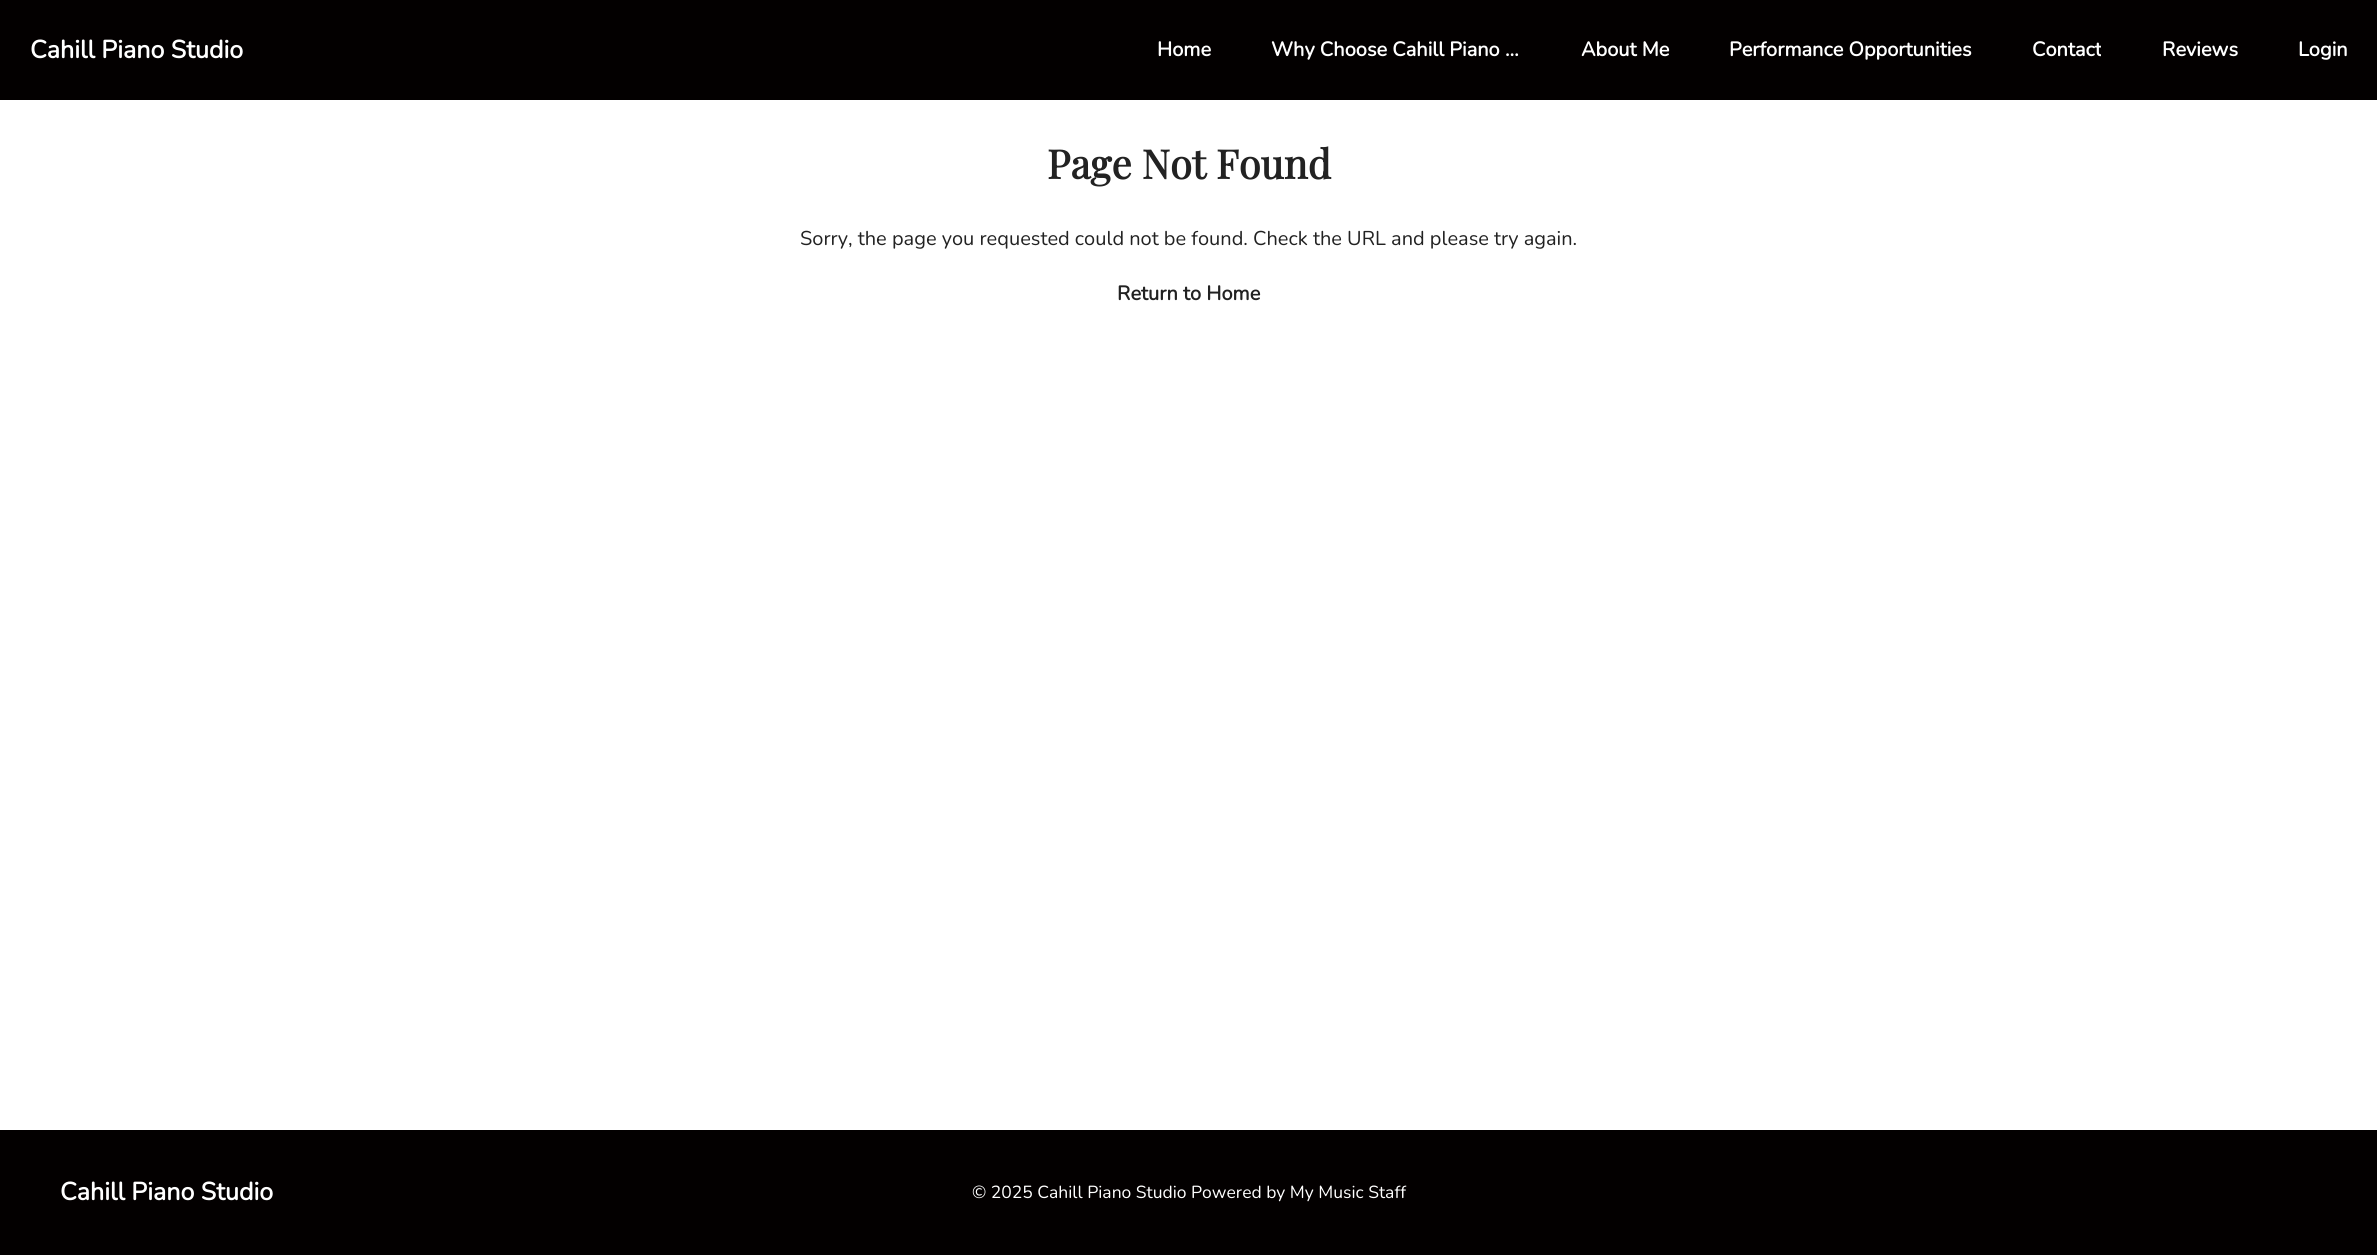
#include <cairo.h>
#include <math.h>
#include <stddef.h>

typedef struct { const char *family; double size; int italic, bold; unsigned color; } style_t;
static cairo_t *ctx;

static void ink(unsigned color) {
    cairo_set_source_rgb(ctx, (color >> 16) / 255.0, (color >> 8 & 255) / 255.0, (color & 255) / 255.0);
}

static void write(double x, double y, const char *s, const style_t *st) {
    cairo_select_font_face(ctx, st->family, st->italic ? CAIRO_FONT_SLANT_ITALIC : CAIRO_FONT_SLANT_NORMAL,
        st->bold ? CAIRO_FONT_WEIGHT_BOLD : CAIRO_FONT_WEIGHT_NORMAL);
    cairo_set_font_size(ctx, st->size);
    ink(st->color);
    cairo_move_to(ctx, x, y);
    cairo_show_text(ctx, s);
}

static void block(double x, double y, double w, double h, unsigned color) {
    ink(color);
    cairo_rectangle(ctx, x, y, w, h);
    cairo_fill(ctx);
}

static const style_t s1 = {"Nunito", 25, 0, 1, 0xffffff};
static const style_t s2 = {"Nunito", 20, 0, 1, 0xffffff};
static const style_t s3 = {"Playfair Display", 40, 0, 1, 0x222222};
static const style_t s4 = {"Nunito ExtraLight", 20, 0, 0, 0x222222};
static const style_t s5 = {"Nunito", 20, 0, 1, 0x222222};
static const style_t s6 = {"Nunito ExtraLight", 17.5, 0, 0, 0xffffff};

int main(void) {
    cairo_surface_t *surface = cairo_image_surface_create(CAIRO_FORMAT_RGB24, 2377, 1255);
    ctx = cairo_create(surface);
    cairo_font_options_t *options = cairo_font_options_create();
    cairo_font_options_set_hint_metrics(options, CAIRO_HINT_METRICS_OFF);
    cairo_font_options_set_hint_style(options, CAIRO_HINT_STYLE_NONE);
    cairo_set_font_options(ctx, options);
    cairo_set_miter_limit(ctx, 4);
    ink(0xffffff);
    cairo_paint(ctx);
    block(0, 0, 2377, 100, 0x030000);
    write(30, 58, "Cahill Piano Studio", &s1);
    write(1157, 56, "Home", &s2);
    write(1271, 56, "Why Choose Cahill Piano …", &s2);
    write(1581, 56, "About Me", &s2);
    write(1729, 56, "Performance Opportunities", &s2);
    cairo_save(ctx);
    cairo_rectangle(ctx, 2033, 36, 68, 28);
    cairo_clip(ctx);
    write(2032, 56, "Contact", &s2);
    cairo_restore(ctx);
    write(2162, 56, "Reviews", &s2);
    write(2298, 56, "Login", &s2);
    write(1047, 179, "Page Not Found", &s3);
    write(800, 245, "Sorry, the page you requested could not be found. Check the URL and please try again.", &s4);
    write(1117, 300, "Return to Home", &s5);
    block(0, 1130, 2377, 125, 0x030000);
    write(60, 1200, "Cahill Piano Studio", &s1);
    write(972, 1198, "© 2025 Cahill Piano Studio Powered by My Music Staff", &s6);
    cairo_surface_write_to_png(surface, "screenshot.png");
    cairo_font_options_destroy(options);
    cairo_destroy(ctx);
    cairo_surface_destroy(surface);
    return 0;
}
